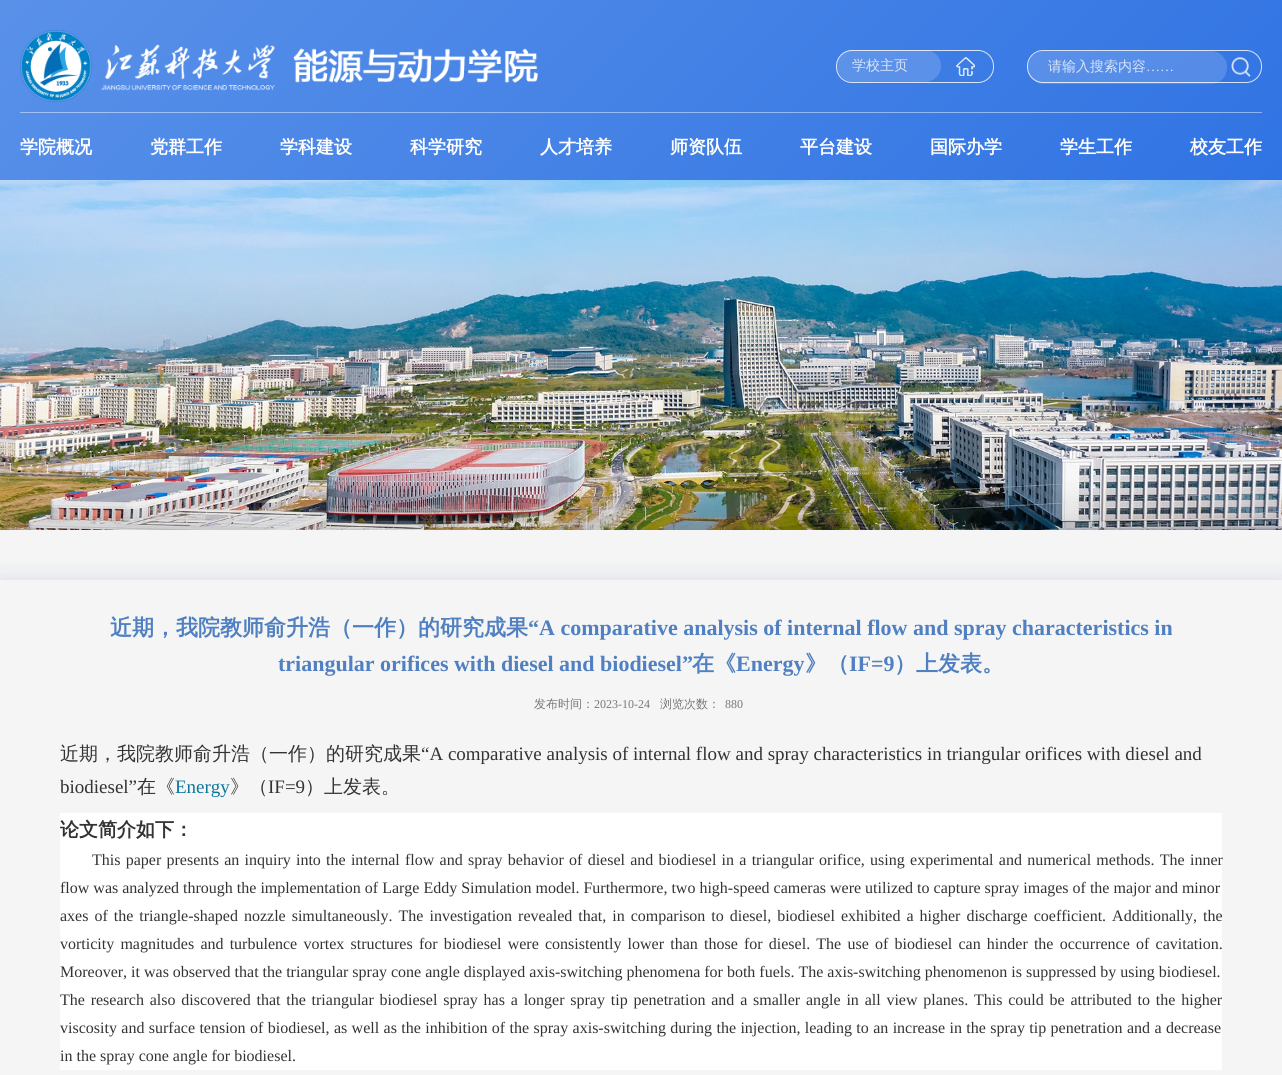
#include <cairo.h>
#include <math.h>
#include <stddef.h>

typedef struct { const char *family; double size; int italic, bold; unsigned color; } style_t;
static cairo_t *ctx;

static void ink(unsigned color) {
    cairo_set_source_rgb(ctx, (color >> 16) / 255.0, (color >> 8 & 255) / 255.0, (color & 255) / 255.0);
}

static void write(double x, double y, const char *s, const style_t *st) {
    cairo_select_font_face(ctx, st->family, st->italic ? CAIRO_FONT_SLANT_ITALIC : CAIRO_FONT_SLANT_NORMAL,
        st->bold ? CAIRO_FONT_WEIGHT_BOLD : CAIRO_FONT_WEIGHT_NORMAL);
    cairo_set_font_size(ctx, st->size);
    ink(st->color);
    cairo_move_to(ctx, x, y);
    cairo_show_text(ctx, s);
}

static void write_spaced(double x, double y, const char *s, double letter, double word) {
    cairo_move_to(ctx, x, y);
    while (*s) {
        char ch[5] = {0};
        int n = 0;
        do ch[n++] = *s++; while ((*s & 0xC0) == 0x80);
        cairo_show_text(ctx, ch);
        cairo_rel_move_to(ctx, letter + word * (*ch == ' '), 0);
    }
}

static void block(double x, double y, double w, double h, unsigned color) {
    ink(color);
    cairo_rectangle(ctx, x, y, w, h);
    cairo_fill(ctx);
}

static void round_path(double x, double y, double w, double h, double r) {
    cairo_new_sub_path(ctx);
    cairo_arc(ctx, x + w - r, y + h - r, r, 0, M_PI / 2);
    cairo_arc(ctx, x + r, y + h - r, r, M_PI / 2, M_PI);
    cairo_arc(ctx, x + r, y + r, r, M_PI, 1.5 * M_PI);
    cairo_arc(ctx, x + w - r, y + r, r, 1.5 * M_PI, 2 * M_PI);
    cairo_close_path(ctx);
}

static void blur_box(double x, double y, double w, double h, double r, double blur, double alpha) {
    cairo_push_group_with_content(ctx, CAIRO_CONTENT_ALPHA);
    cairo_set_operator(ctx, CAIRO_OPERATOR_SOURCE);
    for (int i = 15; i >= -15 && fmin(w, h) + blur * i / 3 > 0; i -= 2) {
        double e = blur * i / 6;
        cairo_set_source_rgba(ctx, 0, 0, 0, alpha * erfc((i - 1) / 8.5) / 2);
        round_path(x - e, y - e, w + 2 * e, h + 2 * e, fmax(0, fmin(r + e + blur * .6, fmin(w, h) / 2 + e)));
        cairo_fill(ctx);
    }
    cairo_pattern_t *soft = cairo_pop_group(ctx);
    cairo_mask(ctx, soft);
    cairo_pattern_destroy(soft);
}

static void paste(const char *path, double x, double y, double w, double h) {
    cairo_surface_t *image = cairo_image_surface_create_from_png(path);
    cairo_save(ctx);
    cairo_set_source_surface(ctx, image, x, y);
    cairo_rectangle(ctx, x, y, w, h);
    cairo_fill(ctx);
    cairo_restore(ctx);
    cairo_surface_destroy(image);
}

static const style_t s1 = {"WenQuanYi Zen Hei Medium", 14, 0, 0, 0xd9e5fa};
static const style_t s2 = {"Liberation Serif", 14, 0, 0, 0xd9e5fa};
static const style_t s3 = {"WenQuanYi Zen Hei", 18, 0, 1, 0xffffff};
static const style_t s4 = {"WenQuanYi Zen Hei", 22, 0, 1, 0x5080c1};
static const style_t s5 = {"Liberation Serif", 22, 0, 1, 0x5080c1};
static const style_t s6 = {"WenQuanYi Zen Hei Medium", 12, 0, 0, 0x787878};
static const style_t s7 = {"Liberation Serif", 12, 0, 0, 0x787878};
static const style_t s8 = {"WenQuanYi Zen Hei Medium", 19, 0, 0, 0x333333};
static const style_t s9 = {"Liberation Serif", 19, 0, 0, 0x333333};
static const style_t s10 = {"Liberation Serif", 19, 0, 0, 0x0c769f};
static const style_t s11 = {"WenQuanYi Zen Hei", 19, 0, 1, 0x333333};
static const style_t s12 = {"Liberation Serif", 16, 0, 0, 0x333333};

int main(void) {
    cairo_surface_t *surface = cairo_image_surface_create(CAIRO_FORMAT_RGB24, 1282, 1075);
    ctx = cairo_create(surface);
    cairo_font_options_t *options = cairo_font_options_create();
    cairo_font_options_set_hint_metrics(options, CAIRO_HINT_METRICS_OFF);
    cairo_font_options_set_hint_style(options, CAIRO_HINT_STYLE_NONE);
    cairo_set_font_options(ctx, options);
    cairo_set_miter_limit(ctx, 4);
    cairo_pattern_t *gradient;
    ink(0xffffff);
    cairo_paint(ctx);
    gradient = cairo_pattern_create_linear(276, -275, 1007, 455);
    cairo_pattern_add_color_stop_rgba(gradient, 0, 0.349, 0.569, 0.914, 1);
    cairo_pattern_add_color_stop_rgba(gradient, 1, 0.188, 0.451, 0.89, 1);
    cairo_set_source(ctx, gradient);
    cairo_pattern_destroy(gradient);
    cairo_rectangle(ctx, 0, 0, 1282, 180);
    cairo_fill(ctx);
    gradient = cairo_pattern_create_linear(276, -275, 1007, 455);
    cairo_pattern_add_color_stop_rgba(gradient, 0, 0.643, 0.765, 0.953, 1);
    cairo_pattern_add_color_stop_rgba(gradient, 1, 0.553, 0.698, 0.941, 1);
    cairo_set_source(ctx, gradient);
    cairo_pattern_destroy(gradient);
    cairo_rectangle(ctx, 20, 112, 1242, 1);
    cairo_fill(ctx);
    paste("pic1.png", 20, 30, 518, 72);
    round_path(836.5, 50.5, 157, 32, 15.5);
    cairo_set_source_rgba(ctx, 1, 1, 1, 0.8);
    cairo_set_line_width(ctx, 1);
    cairo_stroke(ctx);
    cairo_set_source_rgba(ctx, 1, 1, 1, 0.16);
    round_path(837, 50, 104, 32, 16);
    cairo_fill(ctx);
    write(852, 70, "学校主页", &s1);
    paste("pic2.png", 956, 57, 19, 19);
    round_path(1027.5, 50.5, 234, 32, 15.5);
    cairo_set_source_rgba(ctx, 1, 1, 1, 0.8);
    cairo_stroke(ctx);
    cairo_set_source_rgba(ctx, 1, 1, 1, 0.16);
    round_path(1028, 51, 199, 33, 16);
    cairo_fill(ctx);
    write(1048, 71, "请输入搜索内容", &s1);
    write(1146, 71, "……", &s2);
    paste("pic3.png", 1231, 57, 20, 20);
    write(20, 153, "学院概况", &s3);
    write(150, 153, "党群工作", &s3);
    write(280, 153, "学科建设", &s3);
    write(410, 153, "科学研究", &s3);
    write(540, 153, "人才培养", &s3);
    write(670, 153, "师资队伍", &s3);
    write(800, 153, "平台建设", &s3);
    write(930, 153, "国际办学", &s3);
    write(1060, 153, "学生工作", &s3);
    write(1190, 153, "校友工作", &s3);
    paste("pic4.png", 0, 180, 1282, 350);
    block(0, 530, 1282, 545, 0xf5f5f5);
    cairo_save(ctx);
    cairo_rectangle(ctx, 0, 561, 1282, 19);
    cairo_clip(ctx);
    ink(0x819bc2);
    blur_box(-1, 579, 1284, 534, 0, 12.5, 0.25);
    cairo_restore(ctx);
    write(110, 635, "近期，我院教师俞升浩（一作）的研究成果", &s4);
    write(528, 635, "“A comparative analysis of internal flow and spray characteristics in", &s5);
    write(278, 671, "triangular orifices with diesel and biodiesel”", &s5);
    write(692, 671, "在《", &s4);
    write(736, 671, "Energy", &s5);
    write(805, 671, "》（", &s4);
    write(849, 671, "IF=9", &s5);
    write(894, 671, "）上发表。", &s4);
    write(534, 708, "发布时间：", &s6);
    write(594, 708, "2023-10-24", &s7);
    write(660, 708, "浏览次数：", &s6);
    write(725, 708, "880", &s7);
    write(60, 760, "近期，我院教师俞升浩（一作）的研究成果", &s8);
    write(421, 760, "“A comparative analysis of internal flow and spray characteristics in triangular orifices with diesel and", &s9);
    write(60, 793, "biodiesel”", &s9);
    write(137, 793, "在《", &s8);
    write(175, 793, "Energy", &s10);
    write(230, 793, "》（", &s8);
    write(268, 793, "IF=9", &s9);
    write(305, 793, "）上发表。", &s8);
    block(60, 813, 1162, 257, 0xffffff);
    write(60, 836, "论文简介如下：", &s11);
    cairo_select_font_face(ctx, "Liberation Serif", CAIRO_FONT_SLANT_NORMAL, CAIRO_FONT_WEIGHT_NORMAL);
    cairo_set_font_size(ctx, 16);
    write_spaced(92, 865, "This paper presents an inquiry into the internal flow and spray behavior of diesel and biodiesel in a triangular orifice, using experimental and numerical methods. The inner", 0, 1.25);
    write(60, 893, "flow was analyzed through the implementation of Large Eddy Simulation model. Furthermore, two high-speed cameras were utilized to capture spray images of the major and minor", &s12);
    write_spaced(60, 921, "axes of the triangle-shaped nozzle simultaneously. The investigation revealed that, in comparison to diesel, biodiesel exhibited a higher discharge coefficient. Additionally, the", 0, 2);
    write_spaced(60, 949, "vorticity magnitudes and turbulence vortex structures for biodiesel were consistently lower than those for diesel. The use of biodiesel can hinder the occurrence of cavitation.", 0, 2.2);
    write(60, 977, "Moreover, it was observed that the triangular spray cone angle displayed axis-switching phenomena for both fuels. The axis-switching phenomenon is suppressed by using biodiesel.", &s12);
    write_spaced(60, 1005, "The research also discovered that the triangular biodiesel spray has a longer spray tip penetration and a smaller angle in all view planes. This could be attributed to the higher", 0, 1.8);
    write_spaced(60, 1033, "viscosity and surface tension of biodiesel, as well as the inhibition of the spray axis-switching during the injection, leading to an increase in the spray tip penetration and a decrease", 0, 0.4);
    write(60, 1061, "in the spray cone angle for biodiesel.", &s12);
    cairo_surface_write_to_png(surface, "screenshot.png");
    cairo_font_options_destroy(options);
    cairo_destroy(ctx);
    cairo_surface_destroy(surface);
    return 0;
}
